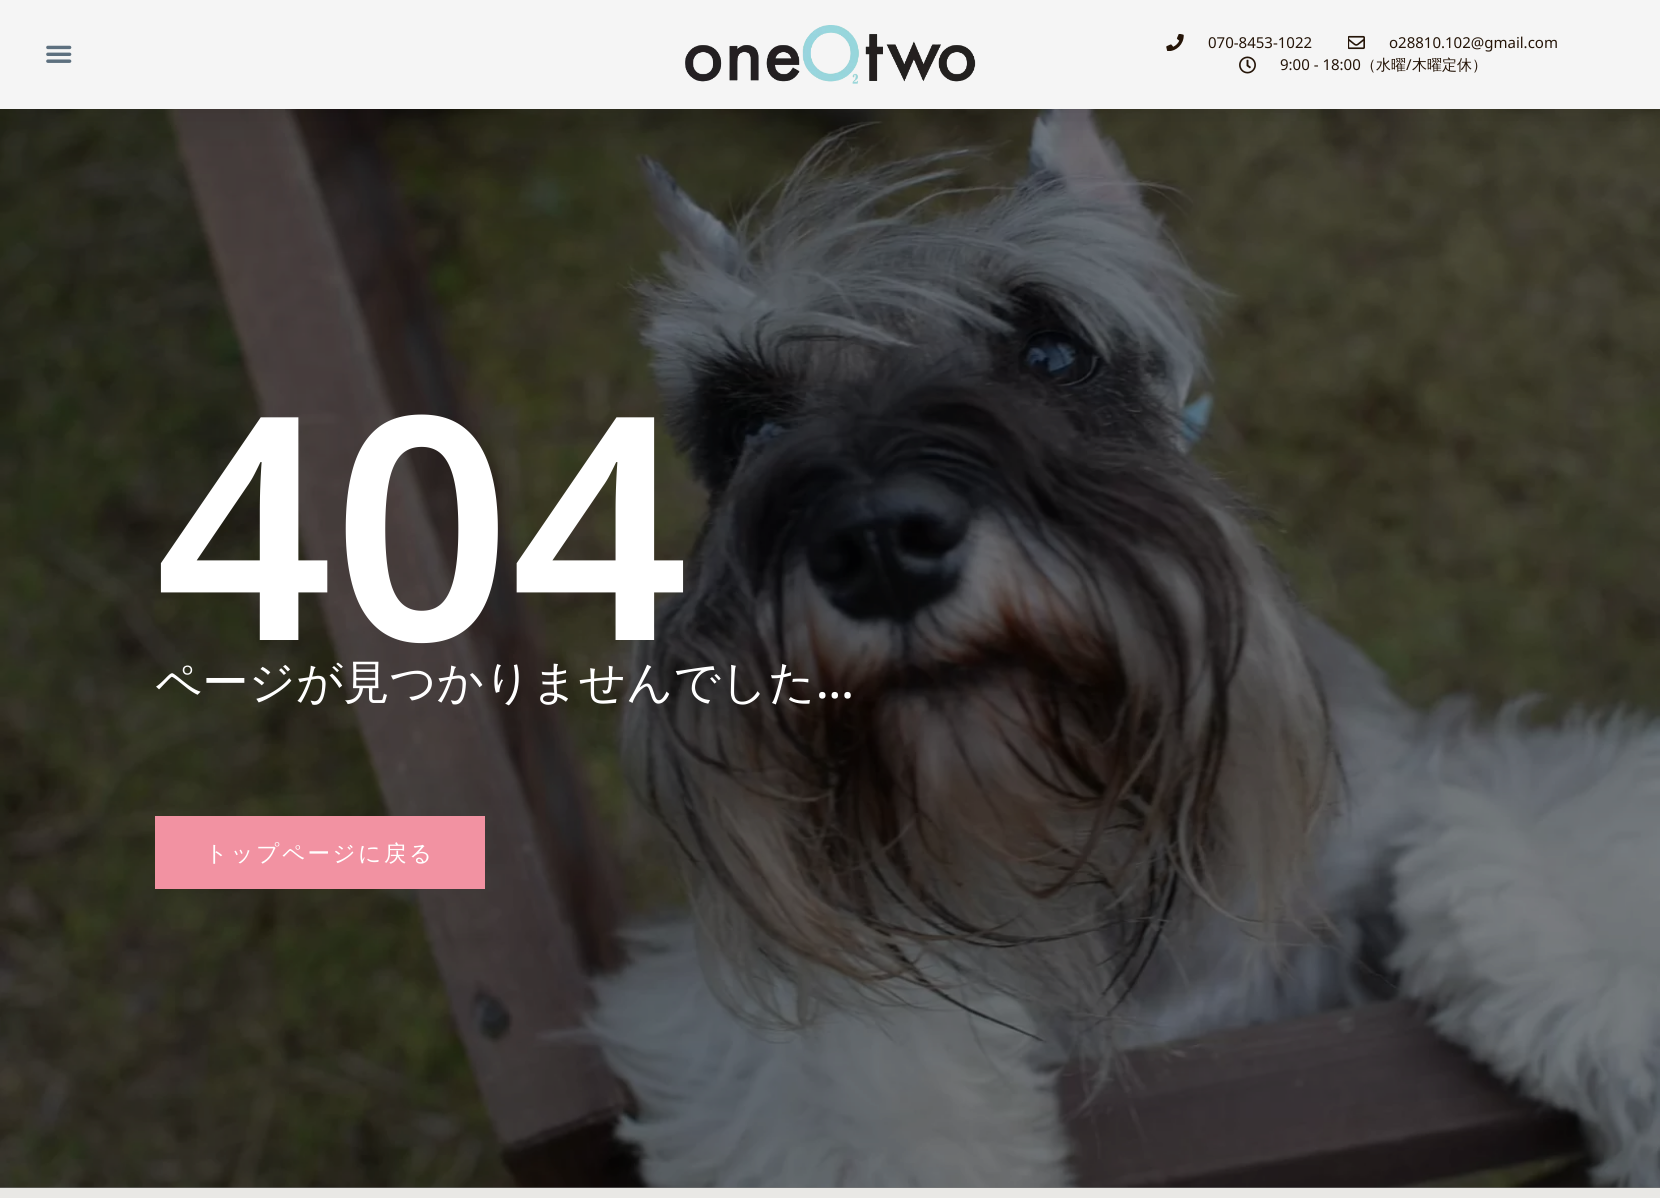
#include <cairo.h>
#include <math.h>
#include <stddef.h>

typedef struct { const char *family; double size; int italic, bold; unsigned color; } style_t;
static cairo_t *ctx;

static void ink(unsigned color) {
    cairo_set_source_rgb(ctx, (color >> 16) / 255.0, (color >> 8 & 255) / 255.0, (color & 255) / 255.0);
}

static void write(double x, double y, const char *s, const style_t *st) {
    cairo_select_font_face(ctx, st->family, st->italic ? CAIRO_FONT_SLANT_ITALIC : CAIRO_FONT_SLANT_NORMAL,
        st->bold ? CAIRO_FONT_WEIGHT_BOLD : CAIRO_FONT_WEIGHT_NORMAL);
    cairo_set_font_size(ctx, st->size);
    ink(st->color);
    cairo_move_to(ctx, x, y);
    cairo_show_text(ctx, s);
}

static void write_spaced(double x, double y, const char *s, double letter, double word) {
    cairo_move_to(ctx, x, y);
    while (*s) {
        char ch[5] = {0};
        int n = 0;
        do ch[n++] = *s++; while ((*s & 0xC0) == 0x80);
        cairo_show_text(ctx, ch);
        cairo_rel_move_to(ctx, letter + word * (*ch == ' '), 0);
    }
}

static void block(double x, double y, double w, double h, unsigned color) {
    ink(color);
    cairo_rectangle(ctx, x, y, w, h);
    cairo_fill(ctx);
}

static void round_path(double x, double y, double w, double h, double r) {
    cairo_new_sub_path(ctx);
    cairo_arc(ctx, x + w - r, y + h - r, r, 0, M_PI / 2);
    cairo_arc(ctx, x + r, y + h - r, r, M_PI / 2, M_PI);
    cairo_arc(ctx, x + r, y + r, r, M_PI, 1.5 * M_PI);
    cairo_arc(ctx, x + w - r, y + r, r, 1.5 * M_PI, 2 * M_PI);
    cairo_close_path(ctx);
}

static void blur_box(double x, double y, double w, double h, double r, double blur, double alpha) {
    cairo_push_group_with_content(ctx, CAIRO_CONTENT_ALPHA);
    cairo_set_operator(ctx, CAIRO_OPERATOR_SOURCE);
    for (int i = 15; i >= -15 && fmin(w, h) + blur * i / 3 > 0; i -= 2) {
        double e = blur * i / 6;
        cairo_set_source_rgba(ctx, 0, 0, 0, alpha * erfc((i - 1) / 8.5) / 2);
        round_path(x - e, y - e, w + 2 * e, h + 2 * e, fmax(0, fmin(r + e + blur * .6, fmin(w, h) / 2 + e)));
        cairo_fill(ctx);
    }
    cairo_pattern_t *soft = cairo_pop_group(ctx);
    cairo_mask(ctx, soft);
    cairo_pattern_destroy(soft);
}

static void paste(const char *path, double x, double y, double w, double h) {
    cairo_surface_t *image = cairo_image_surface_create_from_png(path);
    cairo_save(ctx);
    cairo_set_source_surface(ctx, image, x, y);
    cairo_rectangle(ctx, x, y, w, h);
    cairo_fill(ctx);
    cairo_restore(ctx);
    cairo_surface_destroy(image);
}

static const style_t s1 = {"Noto Sans", 15, 0, 0, 0x251508};
static const style_t s2 = {"WenQuanYi Zen Hei Medium", 15, 0, 0, 0x251508};
static const style_t s3 = {"Noto Sans SemiBold", 311, 0, 0, 0xffffff};
static const style_t s4 = {"WenQuanYi Zen Hei Medium", 46.25, 0, 0, 0xffffff};
static const style_t s5 = {"Noto Sans Medium", 46.25, 0, 0, 0xffffff};

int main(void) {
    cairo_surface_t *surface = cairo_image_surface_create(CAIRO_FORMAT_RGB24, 1660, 1198);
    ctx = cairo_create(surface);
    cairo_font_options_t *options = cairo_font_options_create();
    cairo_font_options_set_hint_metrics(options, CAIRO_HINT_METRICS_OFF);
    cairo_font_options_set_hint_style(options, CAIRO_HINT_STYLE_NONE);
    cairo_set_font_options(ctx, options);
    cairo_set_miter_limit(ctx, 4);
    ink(0x7b7b7b);
    cairo_paint(ctx);
    paste("pic6.png", 0, 109, 1660, 1079);
    ink(0x000000);
    blur_box(0, 0, 1660, 109, 0, 25, 0.16);
    block(0, 0, 1660, 109, 0xf5f5f5);
    paste("pic1.png", 46, 45, 26, 18);
    paste("pic2.png", 685, 25, 291, 59);
    paste("pic3.png", 1166, 34, 18, 17);
    write(1208, 48, "070-8453-1022", &s1);
    paste("pic4.png", 1348, 35, 17, 15);
    write(1389, 48, "o28810.102@gmail.com", &s1);
    paste("pic5.png", 1239, 56, 17, 18);
    write(1280, 70, "9:00 - 18:00", &s1);
    write(1361, 70, "（水曜", &s2);
    write(1406, 70, "/", &s1);
    write(1412, 70, "木曜定休）", &s2);
    write(155, 640, "404", &s3);
    write(155, 698, "ページが見つかりませんでした", &s4);
    write(816, 698, "...", &s5);
    block(155, 816, 330, 73, 0xf292a2);
    cairo_select_font_face(ctx, "WenQuanYi Zen Hei Medium", CAIRO_FONT_SLANT_NORMAL, CAIRO_FONT_WEIGHT_NORMAL);
    cairo_set_font_size(ctx, 22.5);
    ink(0xffffff);
    write_spaced(205, 861, "トップページに戻る", 2.6, 0);
    block(0, 1188, 1660, 10, 0xe9e8e5);
    cairo_surface_write_to_png(surface, "screenshot.png");
    cairo_font_options_destroy(options);
    cairo_destroy(ctx);
    cairo_surface_destroy(surface);
    return 0;
}
